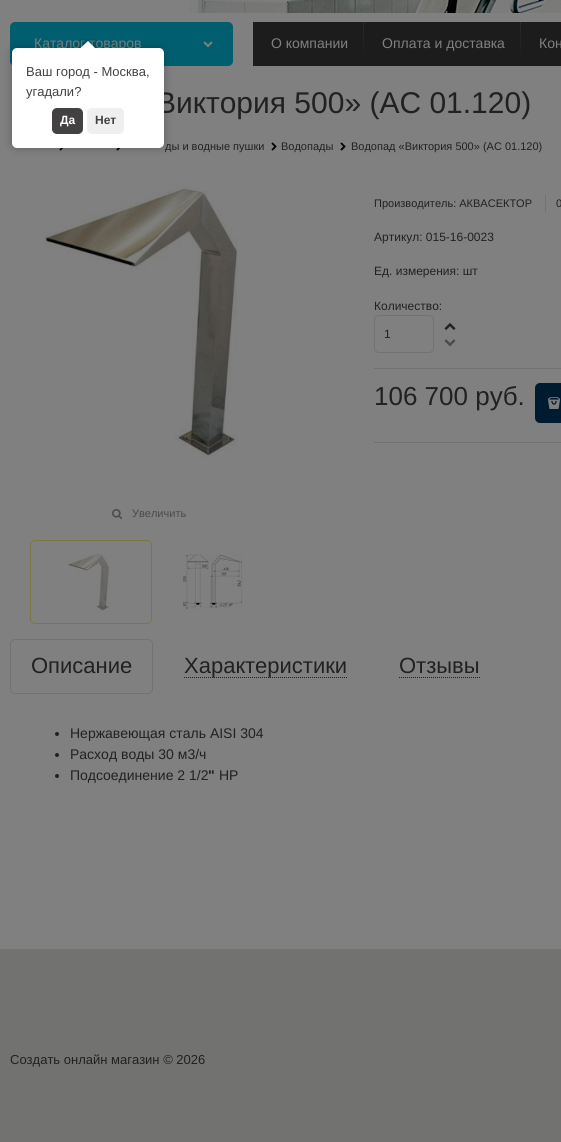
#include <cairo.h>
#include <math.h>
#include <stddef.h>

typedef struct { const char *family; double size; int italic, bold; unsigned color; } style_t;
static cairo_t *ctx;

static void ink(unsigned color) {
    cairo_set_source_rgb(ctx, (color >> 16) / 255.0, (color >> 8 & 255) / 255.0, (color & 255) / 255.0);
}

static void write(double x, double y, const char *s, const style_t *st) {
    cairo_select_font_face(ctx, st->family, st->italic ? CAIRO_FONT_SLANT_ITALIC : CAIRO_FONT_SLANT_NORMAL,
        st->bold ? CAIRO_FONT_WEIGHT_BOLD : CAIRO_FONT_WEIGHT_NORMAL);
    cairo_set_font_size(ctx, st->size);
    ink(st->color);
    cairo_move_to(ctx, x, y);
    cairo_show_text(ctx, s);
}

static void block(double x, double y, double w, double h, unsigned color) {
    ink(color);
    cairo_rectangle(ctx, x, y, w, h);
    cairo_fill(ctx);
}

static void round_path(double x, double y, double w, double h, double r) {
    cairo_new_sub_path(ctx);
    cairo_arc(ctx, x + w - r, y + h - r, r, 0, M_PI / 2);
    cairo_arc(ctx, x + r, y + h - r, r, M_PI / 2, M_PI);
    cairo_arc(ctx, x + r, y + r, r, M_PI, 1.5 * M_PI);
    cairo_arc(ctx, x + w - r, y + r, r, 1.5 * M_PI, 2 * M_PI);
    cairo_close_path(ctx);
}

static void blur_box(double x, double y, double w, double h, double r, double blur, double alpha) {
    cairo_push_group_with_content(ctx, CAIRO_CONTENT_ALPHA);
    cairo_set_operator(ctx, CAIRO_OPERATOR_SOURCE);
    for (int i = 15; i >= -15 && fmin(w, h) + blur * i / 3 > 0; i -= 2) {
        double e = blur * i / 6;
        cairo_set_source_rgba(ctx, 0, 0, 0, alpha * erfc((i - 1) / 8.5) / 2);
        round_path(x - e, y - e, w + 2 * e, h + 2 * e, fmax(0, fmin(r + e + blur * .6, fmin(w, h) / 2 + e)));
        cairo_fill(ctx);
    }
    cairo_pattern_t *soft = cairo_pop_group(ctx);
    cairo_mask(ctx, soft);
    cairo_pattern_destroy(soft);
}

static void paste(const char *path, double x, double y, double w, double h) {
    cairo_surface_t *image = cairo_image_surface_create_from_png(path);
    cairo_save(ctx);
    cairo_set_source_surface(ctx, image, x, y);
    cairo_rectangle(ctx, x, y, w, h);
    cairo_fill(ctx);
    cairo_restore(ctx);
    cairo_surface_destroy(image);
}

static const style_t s1 = {"Liberation Sans", 14, 0, 0, 0x808080};
static const style_t s2 = {"Liberation Sans", 30, 0, 0, 0x222121};
static const style_t s3 = {"Liberation Sans", 11, 0, 0, 0x222121};
static const style_t s4 = {"Liberation Sans", 12, 0, 0, 0x222121};
static const style_t s5 = {"Liberation Sans", 26, 0, 0, 0x222121};
static const style_t s6 = {"Liberation Sans", 11, 0, 0, 0x4a4b4e};
static const style_t s7 = {"Liberation Sans", 22, 0, 0, 0x222121};
static const style_t s8 = {"Liberation Sans", 14, 0, 0, 0x222121};
static const style_t s9 = {"Liberation Sans", 14, 0, 1, 0x222121};
static const style_t s10 = {"Liberation Sans", 13, 0, 0, 0x222121};
static const style_t s11 = {"Liberation Sans", 13, 0, 0, 0x434142};
static const style_t s12 = {"Liberation Sans", 12, 0, 1, 0xffffff};
static const style_t s13 = {"Liberation Sans", 12, 0, 1, 0x434142};

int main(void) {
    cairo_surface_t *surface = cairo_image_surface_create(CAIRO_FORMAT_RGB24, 561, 1142);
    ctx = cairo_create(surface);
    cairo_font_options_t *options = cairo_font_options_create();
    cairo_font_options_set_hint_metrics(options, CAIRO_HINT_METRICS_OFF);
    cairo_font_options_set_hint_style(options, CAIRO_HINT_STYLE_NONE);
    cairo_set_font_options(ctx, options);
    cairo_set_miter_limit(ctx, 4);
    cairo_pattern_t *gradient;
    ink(0x808080);
    cairo_paint(ctx);
    paste("pic1.png", 190, 0, 371, 13);
    ink(0x005e6f);
    round_path(10, 22, 223, 44, 5);
    cairo_fill(ctx);
    write(34, 48, "Каталог товаров", &s1);
    paste("pic2.png", 203, 41, 10, 7);
    block(253, 22, 308, 44, 0x1c1c1c);
    write(271, 48, "О компании", &s1);
    gradient = cairo_pattern_create_linear(364, 22, 364, 66);
    cairo_pattern_add_color_stop_rgba(gradient, 0, 0.165, 0.165, 0.165, 1);
    cairo_pattern_add_color_stop_rgba(gradient, 0.72, 0.118, 0.118, 0.118, 1);
    cairo_pattern_add_color_stop_rgba(gradient, 1, 0.11, 0.11, 0.11, 1);
    cairo_set_source(ctx, gradient);
    cairo_pattern_destroy(gradient);
    cairo_rectangle(ctx, 363, 22, 1, 30);
    cairo_fill(ctx);
    write(382, 48, "Оплата и доставка", &s1);
    gradient = cairo_pattern_create_linear(521, 22, 521, 66);
    cairo_pattern_add_color_stop_rgba(gradient, 0, 0.165, 0.165, 0.165, 1);
    cairo_pattern_add_color_stop_rgba(gradient, 0.72, 0.118, 0.118, 0.118, 1);
    cairo_pattern_add_color_stop_rgba(gradient, 1, 0.11, 0.11, 0.11, 1);
    cairo_set_source(ctx, gradient);
    cairo_pattern_destroy(gradient);
    cairo_rectangle(ctx, 520, 22, 1, 30);
    cairo_fill(ctx);
    write(539, 48, "Кон", &s1);
    write(156, 113, "Виктория 500» (АС 01.120)", &s2);
    paste("pic3.png", 59, 148, 5, 3);
    paste("pic3.png", 116, 148, 5, 3);
    write(165, 150, "ды и водные пушки", &s3);
    paste("pic4.png", 271, 142, 6, 9);
    write(281, 150, "Водопады", &s3);
    paste("pic4.png", 340, 142, 6, 9);
    write(351, 150, "Водопад «Виктория 500» (АС 01.120)", &s3);
    write(374, 207, "Производитель: АКВАСЕКТОР", &s3);
    block(545, 195, 1, 17, 0x717272);
    write(556, 207, "0", &s3);
    write(374, 241, "Артикул: 015-16-0023", &s4);
    write(374, 275, "Ед. измерения: шт", &s4);
    write(374, 310, "Количество:", &s4);
    round_path(374.5, 315.5, 59, 37, 4.5);
    ink(0x717272);
    cairo_set_line_width(ctx, 1);
    cairo_stroke(ctx);
    write(384, 338, "1", &s4);
    paste("pic5.png", 444, 323, 12, 7);
    paste("pic6.png", 444, 339, 12, 8);
    block(374, 368, 187, 1, 0x717272);
    block(374, 442, 187, 1, 0x717272);
    write(374, 405, "106 700 руб.", &s5);
    ink(0x001b30);
    round_path(535, 383, 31, 40, 5);
    cairo_fill(ctx);
    paste("pic7.png", 548, 397, 12, 12);
    paste("pic8.png", 44, 186, 194, 271);
    paste("pic9.png", 112, 508, 11, 12);
    write(132, 517, "Увеличить", &s6);
    round_path(30.5, 540.5, 121, 83, 4.5);
    ink(0x7c7642);
    cairo_stroke(ctx);
    paste("pic10.png", 67, 553, 42, 59);
    paste("pic11.png", 183, 554, 60, 55);
    round_path(10.5, 639.5, 142, 54, 4.5);
    ink(0x717272);
    cairo_stroke(ctx);
    write(31, 673, "Описание", &s7);
    cairo_new_path(ctx);
    cairo_move_to(ctx, 184, 677.5);
    cairo_line_to(ctx, 347, 677.5);
    cairo_set_dash(ctx, (double[]){1, 1}, 2, 0);
    cairo_stroke(ctx);
    write(184, 673, "Характеристики", &s7);
    cairo_new_path(ctx);
    cairo_move_to(ctx, 399, 677.5);
    cairo_line_to(ctx, 480, 677.5);
    cairo_stroke(ctx);
    write(399, 673, "Отзывы", &s7);
    cairo_new_path(ctx);
    cairo_arc(ctx, 57, 734, 2, 0, 2 * M_PI);
    cairo_fill(ctx);
    write(70, 738, "Нержавеющая сталь AISI 304", &s8);
    cairo_new_path(ctx);
    cairo_arc(ctx, 57, 755, 2, 0, 2 * M_PI);
    cairo_fill(ctx);
    write(70, 759, "Расход воды 30 м3/ч", &s8);
    cairo_new_path(ctx);
    cairo_arc(ctx, 57, 776, 2, 0, 2 * M_PI);
    cairo_fill(ctx);
    write(70, 780, "Подсоединение 2 1/2", &s8);
    write(208, 780, "\"", &s9);
    write(219, 780, "НР", &s8);
    block(0, 949, 561, 193, 0x727271);
    write(10, 1064, "Создать онлайн магазин © 2026", &s10);
    ink(0x000000);
    blur_box(12, 48, 152, 100, 5, 4.5, 0.25);
    ink(0xffffff);
    round_path(12, 48, 152, 100, 5);
    cairo_fill(ctx);
    cairo_save(ctx);
    cairo_rectangle(ctx, 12, 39, 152, 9);
    cairo_clip(ctx);
    ink(0x000000);
    blur_box(83, 43, 10, 10, 0, 4.5, 0.25);
    cairo_restore(ctx);
    cairo_save(ctx);
    cairo_rectangle(ctx, 12, 39, 152, 9);
    cairo_clip(ctx);
    cairo_new_path(ctx);
    cairo_move_to(ctx, 88, 41);
    cairo_line_to(ctx, 95, 48);
    cairo_line_to(ctx, 88, 55);
    cairo_line_to(ctx, 80.5, 48);
    cairo_close_path(ctx);
    cairo_fill(ctx);
    cairo_restore(ctx);
    write(26, 76, "Ваш город - Москва,", &s11);
    write(26, 96, "угадали?", &s11);
    round_path(52, 108, 31, 26, 5);
    cairo_fill(ctx);
    write(60, 124, "Да", &s12);
    ink(0xefefef);
    round_path(87, 108, 37, 26, 5);
    cairo_fill(ctx);
    write(95, 124, "Нет", &s13);
    cairo_surface_write_to_png(surface, "screenshot.png");
    cairo_font_options_destroy(options);
    cairo_destroy(ctx);
    cairo_surface_destroy(surface);
    return 0;
}
